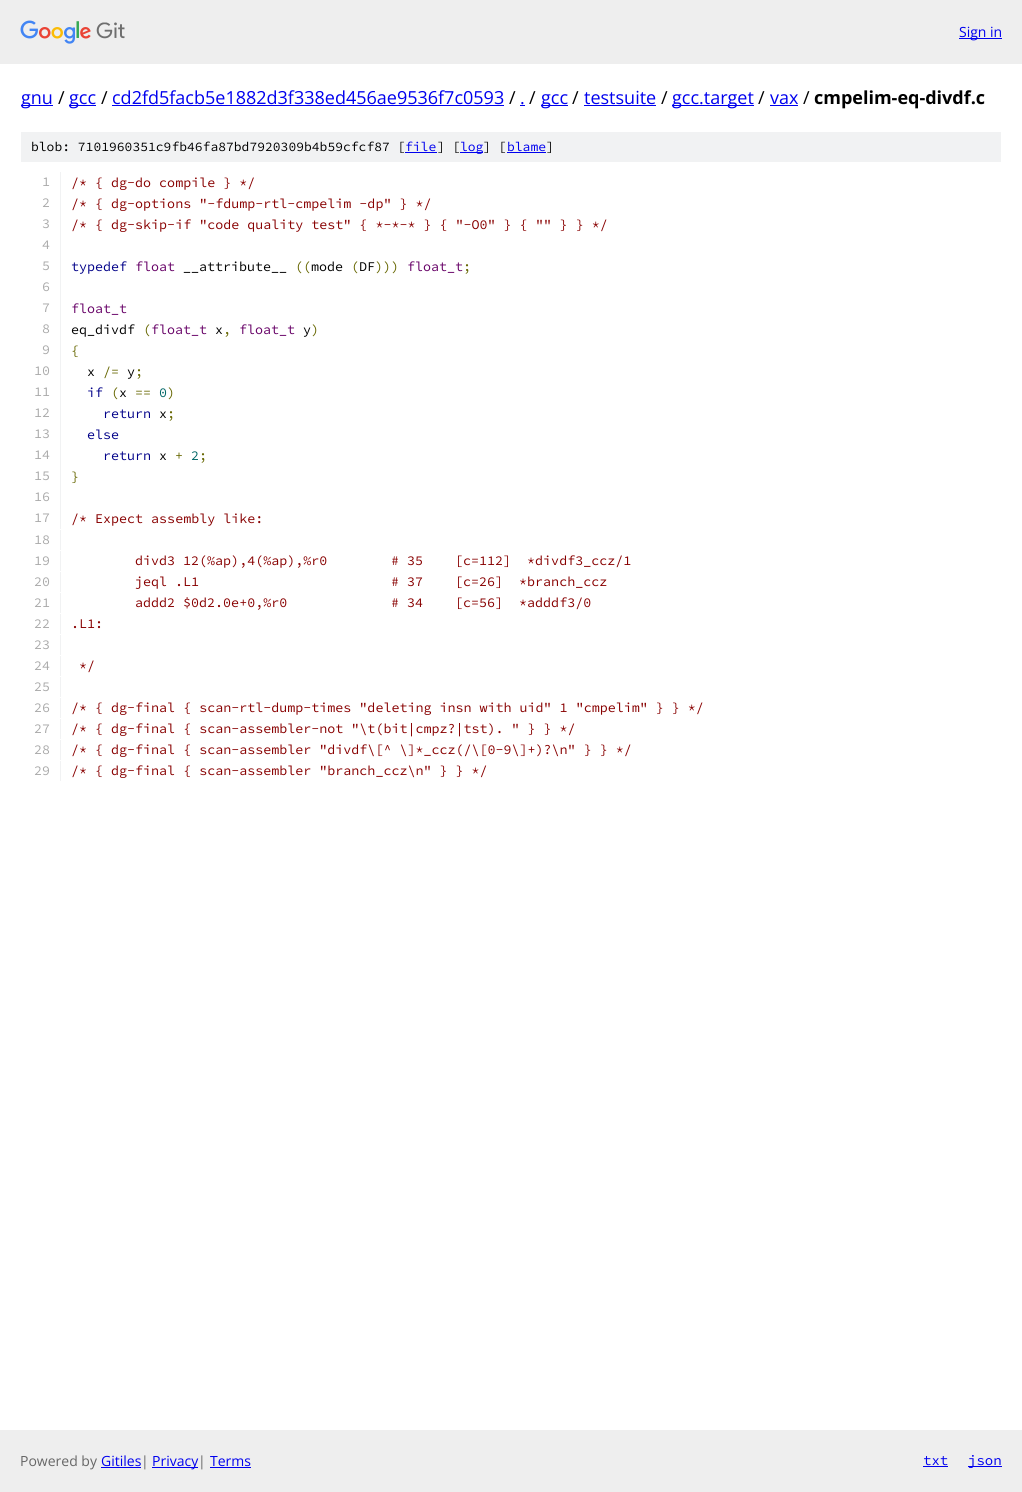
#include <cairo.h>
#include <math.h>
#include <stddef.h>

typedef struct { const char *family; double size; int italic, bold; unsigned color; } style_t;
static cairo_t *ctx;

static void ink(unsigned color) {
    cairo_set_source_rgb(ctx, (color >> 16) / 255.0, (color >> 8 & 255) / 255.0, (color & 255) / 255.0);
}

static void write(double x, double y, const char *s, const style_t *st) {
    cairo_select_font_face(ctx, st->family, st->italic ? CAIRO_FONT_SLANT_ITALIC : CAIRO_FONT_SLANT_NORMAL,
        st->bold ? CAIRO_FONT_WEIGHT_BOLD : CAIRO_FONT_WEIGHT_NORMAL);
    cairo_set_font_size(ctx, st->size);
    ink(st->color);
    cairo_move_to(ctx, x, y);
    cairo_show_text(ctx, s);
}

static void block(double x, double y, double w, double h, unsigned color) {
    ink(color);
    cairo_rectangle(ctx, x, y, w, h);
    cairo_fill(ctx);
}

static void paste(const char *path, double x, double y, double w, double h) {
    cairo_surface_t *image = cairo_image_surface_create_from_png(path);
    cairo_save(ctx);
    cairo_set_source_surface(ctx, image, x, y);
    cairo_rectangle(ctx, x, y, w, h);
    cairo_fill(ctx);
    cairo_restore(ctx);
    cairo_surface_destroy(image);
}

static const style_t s1 = {"Open Sans", 14, 0, 0, 0x0000ee};
static const style_t s2 = {"Open Sans", 18, 0, 0, 0x0000ee};
static const style_t s3 = {"Open Sans", 18, 0, 0, 0x000000};
static const style_t s4 = {"Open Sans", 18, 0, 1, 0x000000};
static const style_t s5 = {"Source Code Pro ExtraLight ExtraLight", 13, 0, 0, 0x000000};
static const style_t s6 = {"Source Code Pro ExtraLight ExtraLight", 13, 0, 0, 0x0000ee};
static const style_t s7 = {"Source Code Pro ExtraLight ExtraLight", 13.35, 0, 0, 0xaaaaaa};
static const style_t s8 = {"Source Code Pro ExtraLight ExtraLight", 13.35, 0, 0, 0x880000};
static const style_t s9 = {"Source Code Pro ExtraLight ExtraLight", 13.35, 0, 0, 0x000088};
static const style_t s10 = {"Source Code Pro ExtraLight ExtraLight", 13.35, 0, 0, 0x660066};
static const style_t s11 = {"Source Code Pro ExtraLight ExtraLight", 13.35, 0, 0, 0x000000};
static const style_t s12 = {"Source Code Pro ExtraLight ExtraLight", 13.35, 0, 0, 0x666600};
static const style_t s13 = {"Source Code Pro ExtraLight ExtraLight", 13.35, 0, 0, 0x006666};
static const style_t s14 = {"Open Sans", 14, 0, 0, 0x666666};
static const style_t s15 = {"Source Code Pro ExtraLight ExtraLight", 14, 0, 0, 0x0000ee};

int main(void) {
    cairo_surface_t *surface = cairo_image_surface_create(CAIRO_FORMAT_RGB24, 1022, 1492);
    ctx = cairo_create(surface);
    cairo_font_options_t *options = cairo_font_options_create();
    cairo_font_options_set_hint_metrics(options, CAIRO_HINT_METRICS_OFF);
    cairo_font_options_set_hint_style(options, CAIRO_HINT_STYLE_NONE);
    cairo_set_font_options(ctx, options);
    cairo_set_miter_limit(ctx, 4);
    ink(0xffffff);
    cairo_paint(ctx);
    block(0, 0, 1022, 64, 0xeeeeee);
    paste("pic1.png", 20, 20, 105, 24);
    block(959, 38, 43, 1, 0x0000ee);
    write(959, 37, "Sign in", &s1);
    block(21, 105, 32, 1, 0x0000ee);
    write(21, 104, "gnu", &s2);
    write(58, 104, "/", &s3);
    block(69, 105, 27, 1, 0x0000ee);
    write(69, 104, "gcc", &s2);
    write(101, 104, "/", &s3);
    write(112, 104, "cd2fd5facb5e1882d3f338ed456ae9536f7c0593", &s2);
    block(112, 105, 392, 1, 0x0000ee);
    write(509, 104, "/", &s3);
    write(520, 104, ".", &s2);
    block(520, 105, 5, 1, 0x0000ee);
    write(529, 104, "/", &s3);
    block(541, 105, 27, 1, 0x0000ee);
    write(541, 104, "gcc", &s2);
    write(572, 104, "/", &s3);
    write(584, 104, "testsuite", &s2);
    block(584, 105, 72, 1, 0x0000ee);
    write(661, 104, "/", &s3);
    block(672, 105, 82, 1, 0x0000ee);
    write(672, 104, "gcc.target", &s2);
    write(758, 104, "/", &s3);
    write(770, 104, "vax", &s2);
    block(770, 105, 28, 1, 0x0000ee);
    write(803, 104, "/", &s3);
    write(814, 104, "cmpelim-eq-divdf.c", &s4);
    block(21, 132, 980, 30, 0xf1f2f3);
    write(31, 151, "blob: 7101960351c9fb46fa87bd7920309b4b59cfcf87 [", &s5);
    write(405, 151, "file", &s6);
    block(405, 152, 32, 1, 0x0000ee);
    write(437, 151, "] [", &s5);
    block(460, 152, 23, 1, 0x0000ee);
    write(460, 151, "log", &s6);
    write(483, 151, "] [", &s5);
    write(507, 151, "blame", &s6);
    block(507, 152, 39, 1, 0x0000ee);
    write(546, 151, "]", &s5);
    block(60, 172, 1, 357, 0xf1f2f3);
    write(42, 186, "1", &s7);
    write(71, 187, "/* { dg-do compile } */", &s8);
    write(42, 207, "2", &s7);
    write(71, 208, "/* { dg-options \"-fdump-rtl-cmpelim -dp\" } */", &s8);
    write(42, 228, "3", &s7);
    write(71, 229, "/* { dg-skip-if \"code quality test\" { *-*-* } { \"-O0\" } { \"\" } } */", &s8);
    write(42, 249, "4", &s7);
    write(42, 270, "5", &s7);
    write(71, 271, "typedef", &s9);
    write(135, 271, "float", &s10);
    write(183, 271, "__attribute__", &s11);
    write(295, 271, "((", &s12);
    write(311, 271, "mode", &s11);
    write(351, 271, "(", &s12);
    write(359, 271, "DF", &s11);
    write(375, 271, ")))", &s12);
    write(407, 271, "float_t", &s10);
    write(463, 271, ";", &s12);
    write(42, 291, "6", &s7);
    write(42, 312, "7", &s7);
    write(71, 313, "float_t", &s10);
    write(42, 333, "8", &s7);
    write(71, 334, "eq_divdf", &s11);
    write(143, 334, "(", &s12);
    write(151, 334, "float_t", &s10);
    write(215, 334, "x", &s11);
    write(223, 334, ",", &s12);
    write(239, 334, "float_t", &s10);
    write(303, 334, "y", &s11);
    write(311, 334, ")", &s12);
    write(42, 354, "9", &s7);
    write(71, 355, "{", &s12);
    write(34, 375, "10", &s7);
    write(87, 376, "x", &s11);
    write(103, 376, "/=", &s12);
    write(127, 376, "y", &s11);
    write(135, 376, ";", &s12);
    write(34, 396, "11", &s7);
    write(87, 397, "if", &s9);
    write(111, 397, "(", &s12);
    write(119, 397, "x", &s11);
    write(135, 397, "==", &s12);
    write(159, 397, "0", &s13);
    write(167, 397, ")", &s12);
    write(34, 417, "12", &s7);
    write(103, 418, "return", &s9);
    write(159, 418, "x", &s11);
    write(167, 418, ";", &s12);
    write(34, 438, "13", &s7);
    write(87, 439, "else", &s9);
    write(34, 459, "14", &s7);
    write(103, 460, "return", &s9);
    write(159, 460, "x", &s11);
    write(175, 460, "+", &s12);
    write(191, 460, "2", &s13);
    write(199, 460, ";", &s12);
    write(34, 480, "15", &s7);
    write(71, 481, "}", &s12);
    write(34, 501, "16", &s7);
    write(34, 522, "17", &s7);
    write(71, 523, "/* Expect assembly like:", &s8);
    block(60, 530, 1, 20, 0xf1f2f3);
    write(34, 544, "18", &s7);
    block(60, 551, 1, 20, 0xf1f2f3);
    write(34, 565, "19", &s7);
    write(135, 565, "divd3 12(%ap),4(%ap),%r0", &s8);
    write(391, 565, "# 35", &s8);
    write(455, 565, "[c=112]  *divdf3_ccz/1", &s8);
    block(60, 572, 1, 20, 0xf1f2f3);
    write(34, 586, "20", &s7);
    write(135, 586, "jeql .L1", &s8);
    write(391, 586, "# 37", &s8);
    write(455, 586, "[c=26]  *branch_ccz", &s8);
    block(60, 593, 1, 20, 0xf1f2f3);
    write(34, 607, "21", &s7);
    write(135, 607, "addd2 $0d2.0e+0,%r0", &s8);
    write(391, 607, "# 34", &s8);
    write(455, 607, "[c=56]  *adddf3/0", &s8);
    block(60, 614, 1, 20, 0xf1f2f3);
    write(34, 628, "22", &s7);
    write(71, 628, ".L1:", &s8);
    block(60, 635, 1, 20, 0xf1f2f3);
    write(34, 649, "23", &s7);
    block(60, 656, 1, 20, 0xf1f2f3);
    write(34, 670, "24", &s7);
    write(79, 670, "*/", &s8);
    block(60, 677, 1, 20, 0xf1f2f3);
    write(34, 691, "25", &s7);
    block(60, 698, 1, 20, 0xf1f2f3);
    write(34, 712, "26", &s7);
    write(71, 712, "/* { dg-final { scan-rtl-dump-times \"deleting insn with uid\" 1 \"cmpelim\" } } */", &s8);
    block(60, 719, 1, 20, 0xf1f2f3);
    write(34, 733, "27", &s7);
    write(71, 733, "/* { dg-final { scan-assembler-not \"\\t(bit|cmpz?|tst). \" } } */", &s8);
    block(60, 740, 1, 20, 0xf1f2f3);
    write(34, 754, "28", &s7);
    write(71, 754, "/* { dg-final { scan-assembler \"divdf\\[^ \\]*_ccz(/\\[0-9\\]+)?\\n\" } } */", &s8);
    block(60, 761, 1, 20, 0xf1f2f3);
    write(34, 775, "29", &s7);
    write(71, 775, "/* { dg-final { scan-assembler \"branch_ccz\\n\" } } */", &s8);
    block(0, 1430, 1022, 62, 0xeeeeee);
    write(20, 1466, "Powered by", &s14);
    write(101, 1466, "Gitiles", &s1);
    block(101, 1467, 40, 1, 0x0000ee);
    write(141, 1466, "|", &s14);
    block(152, 1467, 46, 1, 0x0000ee);
    write(152, 1466, "Privacy", &s1);
    write(198, 1466, "|", &s14);
    write(210, 1466, "Terms", &s1);
    block(210, 1467, 41, 1, 0x0000ee);
    write(923, 1465, "txt", &s15);
    block(923, 1466, 25, 1, 0x0000ee);
    block(968, 1466, 34, 1, 0x0000ee);
    write(968, 1465, "json", &s15);
    cairo_surface_write_to_png(surface, "screenshot.png");
    cairo_font_options_destroy(options);
    cairo_destroy(ctx);
    cairo_surface_destroy(surface);
    return 0;
}
